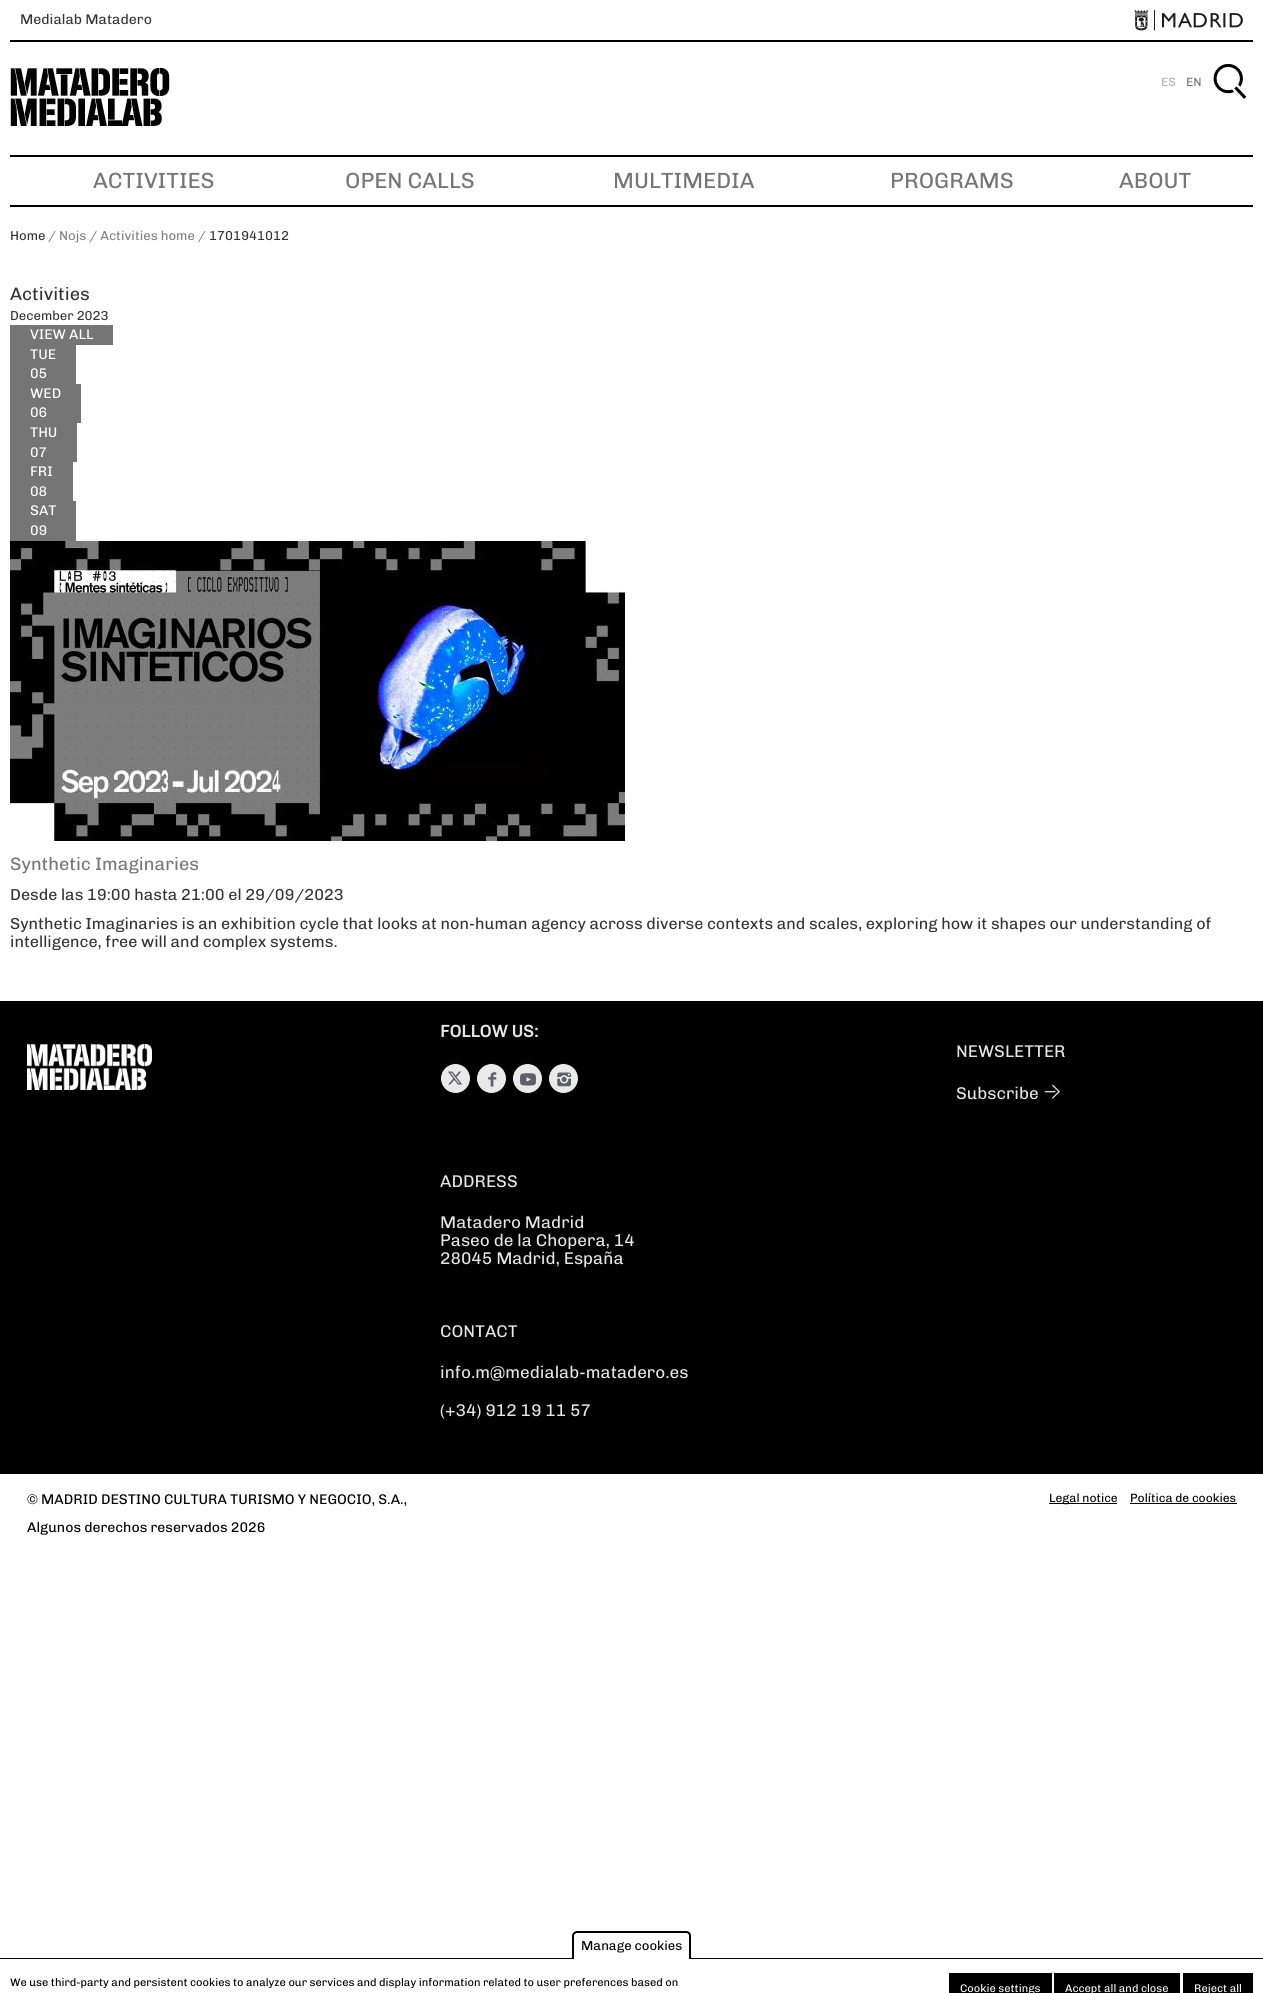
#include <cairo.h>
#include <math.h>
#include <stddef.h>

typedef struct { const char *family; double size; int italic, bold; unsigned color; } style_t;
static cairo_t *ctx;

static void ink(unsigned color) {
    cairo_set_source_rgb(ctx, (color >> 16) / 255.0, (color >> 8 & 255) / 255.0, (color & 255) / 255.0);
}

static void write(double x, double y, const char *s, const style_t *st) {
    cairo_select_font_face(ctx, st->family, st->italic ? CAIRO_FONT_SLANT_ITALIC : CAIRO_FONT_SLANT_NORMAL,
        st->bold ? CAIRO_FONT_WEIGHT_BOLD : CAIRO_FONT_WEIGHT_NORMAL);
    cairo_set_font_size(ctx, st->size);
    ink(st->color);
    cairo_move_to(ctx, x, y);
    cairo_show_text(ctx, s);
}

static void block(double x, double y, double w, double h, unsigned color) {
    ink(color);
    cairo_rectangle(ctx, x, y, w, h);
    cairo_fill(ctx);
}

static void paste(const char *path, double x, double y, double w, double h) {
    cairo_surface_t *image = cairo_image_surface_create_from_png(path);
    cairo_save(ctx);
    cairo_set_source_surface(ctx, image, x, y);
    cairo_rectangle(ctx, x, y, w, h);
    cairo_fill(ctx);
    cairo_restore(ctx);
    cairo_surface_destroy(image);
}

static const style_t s1 = {"Chivo Medium", 14, 0, 0, 0x333333};
static const style_t s2 = {"Chivo Medium", 12, 0, 0, 0xb3b3b3};
static const style_t s3 = {"Chivo Medium", 12, 0, 0, 0x757575};
static const style_t s4 = {"Chivo Medium", 22, 0, 0, 0x757575};
static const style_t s5 = {"Chivo Medium", 13, 0, 0, 0x333333};
static const style_t s6 = {"Chivo Medium", 13, 0, 0, 0x808080};
static const style_t s7 = {"Chivo Medium", 18, 0, 0, 0x333333};
static const style_t s8 = {"Chivo Medium", 14, 0, 0, 0xffffff};
static const style_t s9 = {"Chivo Medium", 18, 0, 0, 0x757575};
static const style_t s10 = {"Chivo Medium", 16, 0, 0, 0x333333};
static const style_t s11 = {"Chivo", 17, 0, 1, 0xe6e6e6};
static const style_t s12 = {"Chivo Medium", 17, 0, 0, 0xe6e6e6};
static const style_t s13 = {"Chivo Medium", 14, 0, 0, 0x000000};
static const style_t s14 = {"Chivo Medium", 12, 0, 0, 0x000000};
static const style_t s15 = {"Chivo Medium", 13, 0, 0, 0x000000};
static const style_t s16 = {"Chivo Medium", 11, 0, 0, 0x000000};
static const style_t s17 = {"Chivo Medium", 11, 0, 0, 0xffffff};

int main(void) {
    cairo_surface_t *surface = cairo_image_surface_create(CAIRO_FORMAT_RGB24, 1263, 1993);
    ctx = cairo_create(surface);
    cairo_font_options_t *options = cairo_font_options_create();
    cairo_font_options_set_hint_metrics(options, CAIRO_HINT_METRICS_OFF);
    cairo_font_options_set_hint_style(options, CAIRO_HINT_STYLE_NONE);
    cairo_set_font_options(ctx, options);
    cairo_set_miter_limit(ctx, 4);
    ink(0xffffff);
    cairo_paint(ctx);
    block(10, 40, 1243, 2, 0x000000);
    write(20, 24, "Medialab Matadero", &s1);
    paste("pic1.png", 1134, 10, 109, 21);
    paste("pic2.png", 10, 67, 160, 60);
    write(1161, 86, "ES", &s2);
    write(1186, 86, "EN", &s3);
    paste("pic3.png", 1213, 63, 34, 36);
    block(10, 155, 1243, 2, 0x000000);
    block(10, 205, 1243, 2, 0x000000);
    write(93, 188, "ACTIVITIES", &s4);
    write(345, 188, "OPEN CALLS", &s4);
    write(613, 188, "MULTIMEDIA", &s4);
    write(890, 188, "PROGRAMS", &s4);
    write(1119, 188, "ABOUT", &s4);
    write(10, 240, "Home", &s5);
    write(48, 240, "/ Nojs / Activities home /", &s6);
    write(209, 240, "1701941012", &s5);
    write(10, 300, "Activities", &s7);
    write(10, 320, "December 2023", &s5);
    block(10, 325, 103, 20, 0x757575);
    write(30, 339, "VIEW ALL", &s8);
    block(10, 345, 66, 39, 0x757575);
    write(30, 359, "TUE", &s8);
    write(30, 378, "05", &s8);
    block(10, 384, 71, 39, 0x757575);
    write(30, 398, "WED", &s8);
    write(30, 417, "06", &s8);
    block(10, 423, 67, 39, 0x757575);
    write(30, 437, "THU", &s8);
    write(30, 457, "07", &s8);
    block(10, 462, 63, 39, 0x757575);
    write(30, 476, "FRI", &s8);
    write(30, 496, "08", &s8);
    block(10, 501, 66, 40, 0x757575);
    write(30, 515, "SAT", &s8);
    write(30, 535, "09", &s8);
    paste("pic4.png", 10, 541, 615, 300);
    write(10, 870, "Synthetic Imaginaries", &s9);
    write(10, 900, "Desde las 19:00 hasta 21:00 el 29/09/2023", &s10);
    write(10, 929, "Synthetic Imaginaries is an exhibition cycle that looks at non-human agency across diverse contexts and scales, exploring how it shapes our understanding of", &s10);
    write(10, 947, "intelligence, free will and complex systems.", &s10);
    block(0, 1001, 1263, 473, 0x000000);
    paste("pic5.png", 27, 1044, 125, 46);
    write(440, 1037, "FOLLOW US:", &s11);
    ink(0xe9e9e9);
    cairo_new_path(ctx);
    cairo_arc(ctx, 455.5, 1078.5, 15, 0, 2 * M_PI);
    cairo_fill_preserve(ctx);
    ink(0x000000);
    cairo_set_line_width(ctx, 1);
    cairo_stroke(ctx);
    paste("pic6.png", 448, 1071, 15, 14);
    ink(0xe9e9e9);
    cairo_arc(ctx, 491.5, 1078.5, 15, 0, 2 * M_PI);
    cairo_fill_preserve(ctx);
    ink(0x000000);
    cairo_stroke(ctx);
    paste("pic7.png", 488, 1072, 9, 15);
    ink(0xe9e9e9);
    cairo_arc(ctx, 527.5, 1078.5, 15, 0, 2 * M_PI);
    cairo_fill_preserve(ctx);
    ink(0x000000);
    cairo_stroke(ctx);
    paste("pic8.png", 520, 1073, 16, 13);
    ink(0xe9e9e9);
    cairo_arc(ctx, 563.5, 1078.5, 15, 0, 2 * M_PI);
    cairo_fill_preserve(ctx);
    ink(0x000000);
    cairo_stroke(ctx);
    paste("pic9.png", 557, 1072, 14, 15);
    write(440, 1187, "ADDRESS", &s12);
    write(440, 1228, "Matadero Madrid", &s12);
    write(440, 1246, "Paseo de la Chopera, 14", &s12);
    write(440, 1264, "28045 Madrid, España", &s12);
    write(440, 1337, "CONTACT", &s12);
    write(440, 1378, "info.m@medialab-matadero.es", &s12);
    write(440, 1416, "(+34) 912 19 11 57", &s12);
    write(956, 1057, "NEWSLETTER", &s12);
    write(956, 1099, "Subscribe", &s12);
    paste("pic10.png", 1044, 1084, 16, 15);
    write(27, 1504, "© MADRID DESTINO CULTURA TURISMO Y NEGOCIO, S.A.,", &s13);
    write(27, 1532, "Algunos derechos reservados 2026", &s13);
    block(1049, 1503, 68, 1, 0x000000);
    write(1049, 1502, "Legal notice", &s14);
    write(1130, 1502, "Política de cookies", &s14);
    block(1130, 1503, 107, 1, 0x000000);
    block(0, 1958, 1263, 1, 0x000000);
    ink(0xffffff);
    cairo_new_path(ctx);
    cairo_move_to(ctx, 577, 1931);
    cairo_line_to(ctx, 686, 1931);
    cairo_curve_to(ctx, 689, 1931, 691, 1933, 691, 1936);
    cairo_line_to(ctx, 691, 1959);
    cairo_line_to(ctx, 572, 1959);
    cairo_line_to(ctx, 572, 1936);
    cairo_curve_to(ctx, 572, 1933, 574, 1931, 577, 1931);
    cairo_close_path(ctx);
    cairo_fill(ctx);
    ink(0x000000);
    cairo_set_fill_rule(ctx, CAIRO_FILL_RULE_EVEN_ODD);
    cairo_new_path(ctx);
    cairo_move_to(ctx, 577, 1931);
    cairo_line_to(ctx, 686, 1931);
    cairo_curve_to(ctx, 689, 1931, 691, 1933, 691, 1936);
    cairo_line_to(ctx, 691, 1959);
    cairo_line_to(ctx, 572, 1959);
    cairo_line_to(ctx, 572, 1936);
    cairo_curve_to(ctx, 572, 1933, 575, 1931, 577, 1931);
    cairo_close_path(ctx);
    cairo_move_to(ctx, 577, 1933);
    cairo_line_to(ctx, 686, 1933);
    cairo_curve_to(ctx, 688, 1933, 689, 1934, 689, 1936);
    cairo_line_to(ctx, 689, 1959);
    cairo_line_to(ctx, 574, 1959);
    cairo_line_to(ctx, 574, 1936);
    cairo_curve_to(ctx, 574, 1934, 576, 1933, 577, 1933);
    cairo_close_path(ctx);
    cairo_fill(ctx);
    write(581, 1950, "Manage cookies", &s15);
    write(10, 1986, "We use third-party and persistent cookies to analyze our services and display information related to user preferences based on", &s16);
    block(949, 1973, 103, 20, 0x000000);
    write(960, 1992, "Cookie settings", &s17);
    block(1054, 1973, 126, 20, 0x000000);
    write(1065, 1992, "Accept all and close", &s17);
    block(1183, 1973, 70, 20, 0x000000);
    write(1194, 1992, "Reject all", &s17);
    cairo_surface_write_to_png(surface, "screenshot.png");
    cairo_font_options_destroy(options);
    cairo_destroy(ctx);
    cairo_surface_destroy(surface);
    return 0;
}
